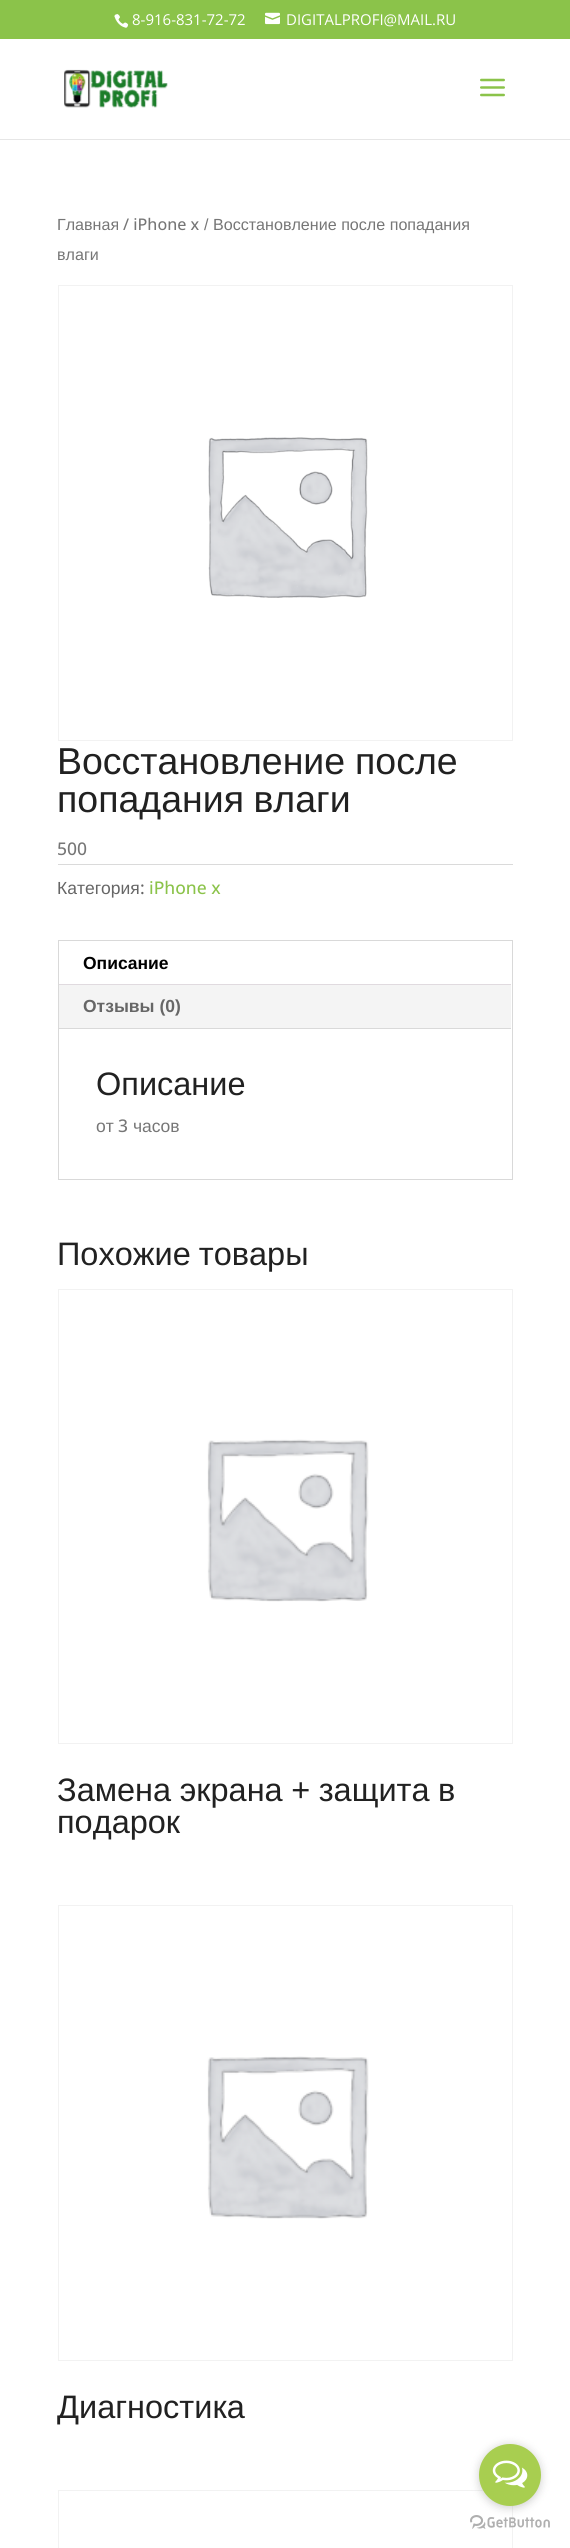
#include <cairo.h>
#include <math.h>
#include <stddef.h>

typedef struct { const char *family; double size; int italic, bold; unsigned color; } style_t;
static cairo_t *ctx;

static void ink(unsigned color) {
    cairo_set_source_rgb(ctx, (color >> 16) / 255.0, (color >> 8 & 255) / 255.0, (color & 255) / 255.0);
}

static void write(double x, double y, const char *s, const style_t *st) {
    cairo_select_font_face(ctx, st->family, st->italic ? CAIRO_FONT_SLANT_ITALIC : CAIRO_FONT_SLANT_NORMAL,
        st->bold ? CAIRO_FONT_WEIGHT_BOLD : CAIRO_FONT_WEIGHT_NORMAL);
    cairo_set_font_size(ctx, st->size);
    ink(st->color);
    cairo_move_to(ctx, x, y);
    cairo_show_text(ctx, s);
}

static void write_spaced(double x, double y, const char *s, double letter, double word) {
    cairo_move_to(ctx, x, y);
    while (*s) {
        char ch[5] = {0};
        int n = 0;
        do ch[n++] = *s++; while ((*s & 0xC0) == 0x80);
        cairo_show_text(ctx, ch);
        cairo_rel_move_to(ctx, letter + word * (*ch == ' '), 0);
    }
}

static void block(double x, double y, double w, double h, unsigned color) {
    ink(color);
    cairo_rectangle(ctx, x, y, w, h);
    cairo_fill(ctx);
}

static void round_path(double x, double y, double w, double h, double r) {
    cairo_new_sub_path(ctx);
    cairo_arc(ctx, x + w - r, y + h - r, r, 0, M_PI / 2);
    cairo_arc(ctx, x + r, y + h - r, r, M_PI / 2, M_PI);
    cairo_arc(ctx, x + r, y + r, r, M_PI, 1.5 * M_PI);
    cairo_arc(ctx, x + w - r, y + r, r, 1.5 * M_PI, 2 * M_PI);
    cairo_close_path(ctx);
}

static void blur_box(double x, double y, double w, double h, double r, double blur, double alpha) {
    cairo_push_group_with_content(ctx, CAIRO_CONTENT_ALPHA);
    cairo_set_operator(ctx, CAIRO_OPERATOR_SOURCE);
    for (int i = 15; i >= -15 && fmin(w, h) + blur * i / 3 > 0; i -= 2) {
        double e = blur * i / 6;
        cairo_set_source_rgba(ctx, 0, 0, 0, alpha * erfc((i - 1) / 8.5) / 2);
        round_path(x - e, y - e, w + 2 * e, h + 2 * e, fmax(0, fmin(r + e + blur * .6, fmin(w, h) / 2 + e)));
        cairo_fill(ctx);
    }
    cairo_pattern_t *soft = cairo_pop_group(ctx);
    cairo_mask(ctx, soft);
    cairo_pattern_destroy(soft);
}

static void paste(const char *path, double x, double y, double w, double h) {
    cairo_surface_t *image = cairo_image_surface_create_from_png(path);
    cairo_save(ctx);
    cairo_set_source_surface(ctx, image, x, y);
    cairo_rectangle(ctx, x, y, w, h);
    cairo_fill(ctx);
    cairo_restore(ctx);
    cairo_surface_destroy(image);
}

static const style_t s1 = {"Open Sans", 15, 0, 0, 0xffffff};
static const style_t s2 = {"Liberation Sans", 16.1, 0, 0, 0x767676};
static const style_t s3 = {"Open Sans Medium", 16.1, 0, 0, 0x767676};
static const style_t s4 = {"Open Sans Medium", 17.5, 0, 0, 0x767676};
static const style_t s5 = {"Liberation Sans", 17.5, 0, 0, 0x666666};
static const style_t s6 = {"Open Sans Medium", 17.5, 0, 0, 0x666666};
static const style_t s7 = {"Open Sans Medium", 17.5, 0, 0, 0x8bc34a};
static const style_t s8 = {"Liberation Sans", 17.5, 0, 1, 0x000000};
static const style_t s9 = {"Liberation Sans", 17.5, 0, 1, 0x666666};
static const style_t s10 = {"Liberation Sans", 32.5, 0, 0, 0x212121};
static const style_t s11 = {"Liberation Sans", 17.5, 0, 0, 0x767676};

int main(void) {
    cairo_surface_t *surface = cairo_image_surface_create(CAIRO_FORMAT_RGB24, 570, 2548);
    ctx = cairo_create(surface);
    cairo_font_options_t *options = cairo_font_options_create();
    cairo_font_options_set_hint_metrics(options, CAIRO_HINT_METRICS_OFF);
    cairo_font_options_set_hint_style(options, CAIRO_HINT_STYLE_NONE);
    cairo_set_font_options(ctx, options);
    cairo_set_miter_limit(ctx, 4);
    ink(0xffffff);
    cairo_paint(ctx);
    block(0, 0, 570, 39, 0x8bc34a);
    paste("pic1.png", 114, 14, 15, 14);
    write(132, 25, "8-916-831-72-72", &s1);
    paste("pic2.png", 265, 12, 15, 13);
    write(286, 25, "DIGITALPROFI@MAIL.RU", &s1);
    block(0, 139, 570, 1, 0xe6e6e6);
    paste("pic3.png", 64, 69, 104, 39);
    paste("pic4.png", 480, 78, 25, 19);
    write(57, 230, "Главная", &s2);
    write(123, 230, "/ iPhone x", &s3);
    write(204, 230, "/ Восстановление после попадания", &s2);
    write(57, 260, "влаги", &s2);
    cairo_rectangle(ctx, 58.5, 285.5, 454, 455);
    ink(0xf2f2f2);
    cairo_set_line_width(ctx, 1);
    cairo_stroke(ctx);
    paste("pic5.png", 208, 437, 160, 161);
    cairo_set_font_size(ctx, 37.5);
    ink(0x212121);
    write_spaced(57, 774, "Восстановление после", 0, -0.5);
    write_spaced(57, 812, "попадания влаги", 0, -1);
    write(57, 855, "500", &s4);
    block(58, 864, 455, 1, 0xdadada);
    write(57, 894, "Категория", &s5);
    write(140, 894, ":", &s6);
    write(149, 894, "iPhone x", &s7);
    cairo_rectangle(ctx, 58.5, 940.5, 454, 239);
    ink(0xd9d9d9);
    cairo_stroke(ctx);
    block(59, 985, 452, 43, 0xf4f4f4);
    block(59, 984, 452, 1, 0xe0dadf);
    write(83, 969, "Описание", &s8);
    write(83, 1012, "Отзывы (0)", &s9);
    block(59, 1028, 452, 1, 0xd9d9d9);
    write(96, 1095, "Описание", &s10);
    write(96, 1132, "от", &s11);
    write(118, 1132, "3", &s4);
    write(133, 1132, "часов", &s11);
    cairo_set_font_size(ctx, 32.5);
    ink(0x212121);
    write_spaced(57, 1265, "Похожие товары", 0, -1);
    cairo_rectangle(ctx, 58.5, 1289.5, 454, 454);
    ink(0xf2f2f2);
    cairo_stroke(ctx);
    paste("pic6.png", 207, 1439, 162, 163);
    ink(0x212121);
    write_spaced(57, 1801, "Замена экрана + защита в", 0, -0.5);
    write(57, 1833, "подарок", &s10);
    cairo_rectangle(ctx, 58.5, 1905.5, 454, 455);
    ink(0xf2f2f2);
    cairo_stroke(ctx);
    paste("pic7.png", 207, 2056, 162, 163);
    write(57, 2418, "Диагностика", &s10);
    cairo_rectangle(ctx, 58.5, 2490.5, 454, 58);
    ink(0xf2f2f2);
    cairo_stroke(ctx);
    paste("pic9.png", 470, 2515, 80, 14);
    ink(0x888888);
    blur_box(479, 2445, 62, 63, 31, 4.5, 0.4);
    ink(0xa8ce50);
    cairo_arc(ctx, 510, 2475, 31, 0, 2 * M_PI);
    cairo_fill(ctx);
    paste("pic8.png", 492, 2460, 36, 28);
    cairo_surface_write_to_png(surface, "screenshot.png");
    cairo_font_options_destroy(options);
    cairo_destroy(ctx);
    cairo_surface_destroy(surface);
    return 0;
}
